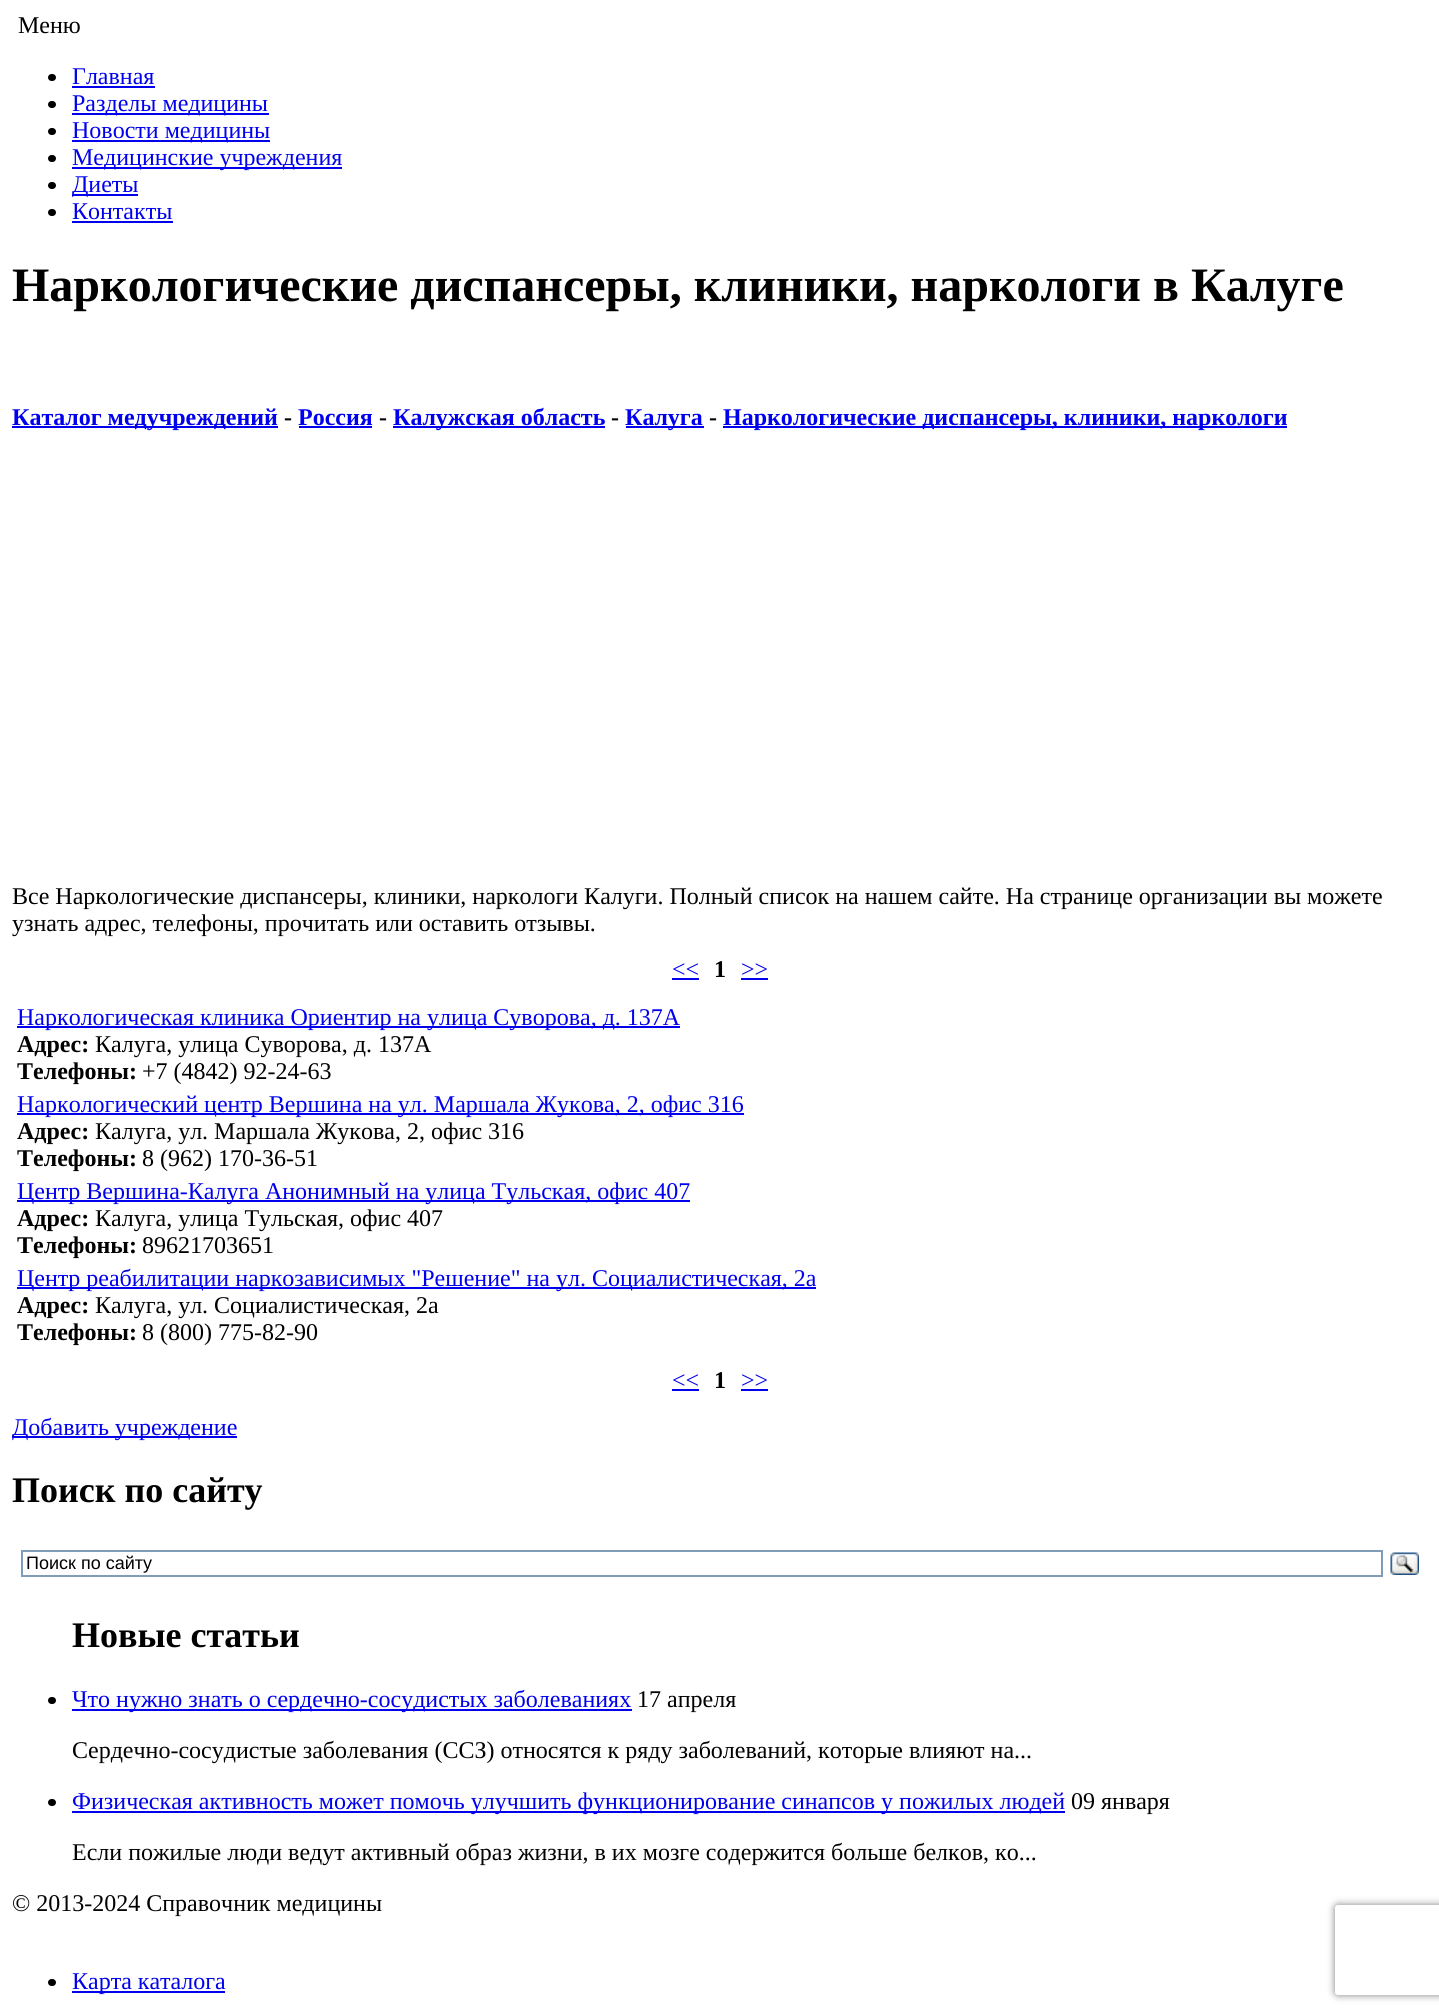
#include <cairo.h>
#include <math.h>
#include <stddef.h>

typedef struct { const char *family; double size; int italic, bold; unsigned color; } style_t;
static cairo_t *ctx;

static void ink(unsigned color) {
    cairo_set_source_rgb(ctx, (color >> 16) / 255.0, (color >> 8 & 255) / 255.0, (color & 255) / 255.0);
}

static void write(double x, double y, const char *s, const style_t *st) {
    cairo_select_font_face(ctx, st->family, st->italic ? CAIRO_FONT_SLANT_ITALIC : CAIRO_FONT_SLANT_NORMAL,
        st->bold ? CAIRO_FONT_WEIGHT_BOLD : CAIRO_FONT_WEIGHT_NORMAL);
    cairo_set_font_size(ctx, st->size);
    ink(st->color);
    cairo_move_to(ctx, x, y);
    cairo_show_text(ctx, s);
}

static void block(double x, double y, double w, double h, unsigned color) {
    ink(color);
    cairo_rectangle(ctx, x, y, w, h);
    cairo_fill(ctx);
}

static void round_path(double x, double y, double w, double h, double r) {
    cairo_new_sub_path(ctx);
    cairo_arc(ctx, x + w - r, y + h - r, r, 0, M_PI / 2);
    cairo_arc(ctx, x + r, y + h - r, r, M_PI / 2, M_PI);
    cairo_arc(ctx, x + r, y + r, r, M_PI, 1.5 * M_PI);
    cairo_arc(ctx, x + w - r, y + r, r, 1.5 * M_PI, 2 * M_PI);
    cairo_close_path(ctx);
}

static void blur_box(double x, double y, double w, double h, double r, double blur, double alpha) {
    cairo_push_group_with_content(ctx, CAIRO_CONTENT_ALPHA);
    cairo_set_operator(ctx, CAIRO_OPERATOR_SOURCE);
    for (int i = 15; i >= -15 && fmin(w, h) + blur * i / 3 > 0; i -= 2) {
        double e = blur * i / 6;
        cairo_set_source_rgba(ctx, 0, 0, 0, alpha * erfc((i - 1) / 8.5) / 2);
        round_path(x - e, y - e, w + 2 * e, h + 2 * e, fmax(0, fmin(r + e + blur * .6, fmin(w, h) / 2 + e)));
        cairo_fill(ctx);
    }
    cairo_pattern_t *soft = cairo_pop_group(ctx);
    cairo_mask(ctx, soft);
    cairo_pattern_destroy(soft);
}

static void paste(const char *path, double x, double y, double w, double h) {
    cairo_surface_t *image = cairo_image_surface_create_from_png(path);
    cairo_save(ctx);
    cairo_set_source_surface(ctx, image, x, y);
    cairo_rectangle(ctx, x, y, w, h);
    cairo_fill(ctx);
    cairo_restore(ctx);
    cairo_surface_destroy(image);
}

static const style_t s1 = {"Liberation Serif", 24, 0, 0, 0x000000};
static const style_t s2 = {"Liberation Serif", 24, 0, 0, 0x0000ee};
static const style_t s3 = {"Liberation Serif", 48, 0, 1, 0x000000};
static const style_t s4 = {"Liberation Serif", 24, 0, 1, 0x0000ee};
static const style_t s5 = {"Liberation Serif", 24, 0, 1, 0x000000};
static const style_t s6 = {"Liberation Serif", 36, 0, 1, 0x000000};
static const style_t s7 = {"Liberation Sans", 18, 0, 0, 0x000000};

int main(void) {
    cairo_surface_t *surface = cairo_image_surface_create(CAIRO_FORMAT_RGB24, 1439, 2016);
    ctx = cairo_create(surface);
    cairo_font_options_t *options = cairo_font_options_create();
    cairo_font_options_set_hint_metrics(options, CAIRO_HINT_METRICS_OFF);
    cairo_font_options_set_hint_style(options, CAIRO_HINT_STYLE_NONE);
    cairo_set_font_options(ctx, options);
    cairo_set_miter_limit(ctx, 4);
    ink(0xffffff);
    cairo_paint(ctx);
    write(18, 33, "Меню", &s1);
    round_path(48, 74, 8, 7, 3.5);
    cairo_fill(ctx);
    write(72, 84, "Главная", &s2);
    block(72, 86, 83, 2, 0x0000ee);
    ink(0x000000);
    round_path(48, 101, 8, 7, 3.5);
    cairo_fill(ctx);
    block(72, 113, 197, 2, 0x0000ee);
    write(72, 111, "Разделы медицины", &s2);
    ink(0x000000);
    round_path(48, 128, 8, 7, 3.5);
    cairo_fill(ctx);
    block(72, 140, 198, 2, 0x0000ee);
    write(72, 138, "Новости медицины", &s2);
    ink(0x000000);
    round_path(48, 155, 8, 7, 3.5);
    cairo_fill(ctx);
    block(72, 167, 270, 2, 0x0000ee);
    write(72, 165, "Медицинские учреждения", &s2);
    ink(0x000000);
    round_path(48, 182, 8, 7, 3.5);
    cairo_fill(ctx);
    block(72, 194, 66, 2, 0x0000ee);
    write(72, 192, "Диеты", &s2);
    ink(0x000000);
    round_path(48, 209, 8, 7, 3.5);
    cairo_fill(ctx);
    write(72, 219, "Контакты", &s2);
    block(72, 221, 101, 2, 0x0000ee);
    write(12, 301, "Наркологические диспансеры, клиники, наркологи в Калуге", &s3);
    block(12, 426, 266, 2, 0x0000ee);
    write(12, 425, "Каталог медучреждений", &s4);
    write(284, 425, "-", &s5);
    write(298, 425, "Россия", &s4);
    block(299, 426, 73, 2, 0x0000ee);
    write(379, 425, "-", &s5);
    block(393, 426, 212, 2, 0x0000ee);
    write(393, 425, "Калужская область", &s4);
    write(611, 425, "-", &s5);
    block(626, 426, 78, 2, 0x0000ee);
    write(625, 425, "Калуга", &s4);
    write(709, 425, "-", &s5);
    block(723, 426, 564, 2, 0x0000ee);
    write(723, 425, "Наркологические диспансеры, клиники, наркологи", &s4);
    write(12, 904, "Все Наркологические диспансеры, клиники, наркологи Калуги. Полный список на нашем сайте. На странице организации вы можете", &s1);
    write(12, 931, "узнать адрес, телефоны, прочитать или оставить отзывы.", &s1);
    write(672, 977, "<<", &s2);
    block(672, 978, 27, 2, 0x0000ee);
    write(714, 977, "1", &s5);
    write(741, 977, ">>", &s2);
    block(741, 978, 27, 2, 0x0000ee);
    block(17, 1026, 663, 2, 0x0000ee);
    write(17, 1025, "Наркологическая клиника Ориентир на улица Суворова, д. 137А", &s2);
    write(17, 1052, "Адрес:", &s5);
    write(95, 1052, "Калуга, улица Суворова, д. 137А", &s1);
    write(17, 1079, "Телефоны:", &s5);
    write(142, 1079, "+7 (4842) 92-24-63", &s1);
    block(17, 1113, 727, 2, 0x0000ee);
    write(17, 1112, "Наркологический центр Вершина на ул. Маршала Жукова, 2, офис 316", &s2);
    write(17, 1139, "Адрес:", &s5);
    write(95, 1139, "Калуга, ул. Маршала Жукова, 2, офис 316", &s1);
    write(17, 1166, "Телефоны:", &s5);
    write(142, 1166, "8 (962) 170-36-51", &s1);
    block(17, 1200, 673, 2, 0x0000ee);
    write(17, 1199, "Центр Вершина-Калуга Анонимный на улица Тульская, офис 407", &s2);
    write(17, 1226, "Адрес:", &s5);
    write(95, 1226, "Калуга, улица Тульская, офис 407", &s1);
    write(17, 1253, "Телефоны:", &s5);
    write(142, 1253, "89621703651", &s1);
    block(17, 1287, 799, 2, 0x0000ee);
    write(17, 1286, "Центр реабилитации наркозависимых \"Решение\" на ул. Социалистическая, 2а", &s2);
    write(17, 1313, "Адрес:", &s5);
    write(95, 1313, "Калуга, ул. Социалистическая, 2а", &s1);
    write(17, 1340, "Телефоны:", &s5);
    write(142, 1340, "8 (800) 775-82-90", &s1);
    write(672, 1388, "<<", &s2);
    block(672, 1389, 27, 2, 0x0000ee);
    write(714, 1388, "1", &s5);
    write(741, 1388, ">>", &s2);
    block(741, 1389, 27, 2, 0x0000ee);
    block(12, 1436, 225, 2, 0x0000ee);
    write(12, 1435, "Добавить учреждение", &s2);
    write(12, 1502, "Поиск по сайту", &s6);
    cairo_rectangle(ctx, 22, 1551, 1360, 25);
    ink(0x7f9db9);
    cairo_stroke(ctx);
    write(26, 1569, "Поиск по сайту", &s7);
    paste("pic1.png", 1390, 1552, 29, 23);
    write(72, 1647, "Новые статьи", &s6);
    round_path(48, 1697, 8, 7, 3.5);
    cairo_fill(ctx);
    block(72, 1709, 560, 2, 0x0000ee);
    write(72, 1707, "Что нужно знать о сердечно-сосудистых заболеваниях", &s2);
    write(637, 1707, "17 апреля", &s1);
    write(72, 1758, "Сердечно-сосудистые заболевания (ССЗ) относятся к ряду заболеваний, которые влияют на...", &s1);
    round_path(48, 1799, 8, 7, 3.5);
    cairo_fill(ctx);
    block(72, 1811, 993, 2, 0x0000ee);
    write(72, 1809, "Физическая активность может помочь улучшить функционирование синапсов у пожилых людей", &s2);
    write(1071, 1809, "09 января", &s1);
    write(72, 1860, "Если пожилые люди ведут активный образ жизни, в их мозге содержится больше белков, ко...", &s1);
    write(12, 1911, "© 2013-2024 Справочник медицины", &s1);
    round_path(48, 1979, 8, 7, 3.5);
    cairo_fill(ctx);
    block(72, 1991, 153, 2, 0x0000ee);
    write(72, 1989, "Карта каталога", &s2);
    cairo_save(ctx);
    cairo_set_fill_rule(ctx, CAIRO_FILL_RULE_EVEN_ODD);
    cairo_new_path(ctx);
    cairo_move_to(ctx, 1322, 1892);
    cairo_line_to(ctx, 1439, 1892);
    cairo_line_to(ctx, 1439, 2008);
    cairo_line_to(ctx, 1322, 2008);
    cairo_close_path(ctx);
    cairo_move_to(ctx, 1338, 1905);
    cairo_line_to(ctx, 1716, 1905);
    cairo_curve_to(ctx, 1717.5, 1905, 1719, 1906.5, 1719, 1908);
    cairo_line_to(ctx, 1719, 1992);
    cairo_curve_to(ctx, 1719, 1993.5, 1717.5, 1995, 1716, 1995);
    cairo_line_to(ctx, 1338, 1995);
    cairo_curve_to(ctx, 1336.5, 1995, 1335, 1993.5, 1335, 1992);
    cairo_line_to(ctx, 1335, 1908);
    cairo_curve_to(ctx, 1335, 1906.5, 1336.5, 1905, 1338, 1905);
    cairo_close_path(ctx);
    cairo_clip(ctx);
    ink(0x808080);
    blur_box(1335, 1905, 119, 90, 3, 4, 1);
    cairo_restore(ctx);
    cairo_surface_write_to_png(surface, "screenshot.png");
    cairo_font_options_destroy(options);
    cairo_destroy(ctx);
    cairo_surface_destroy(surface);
    return 0;
}
